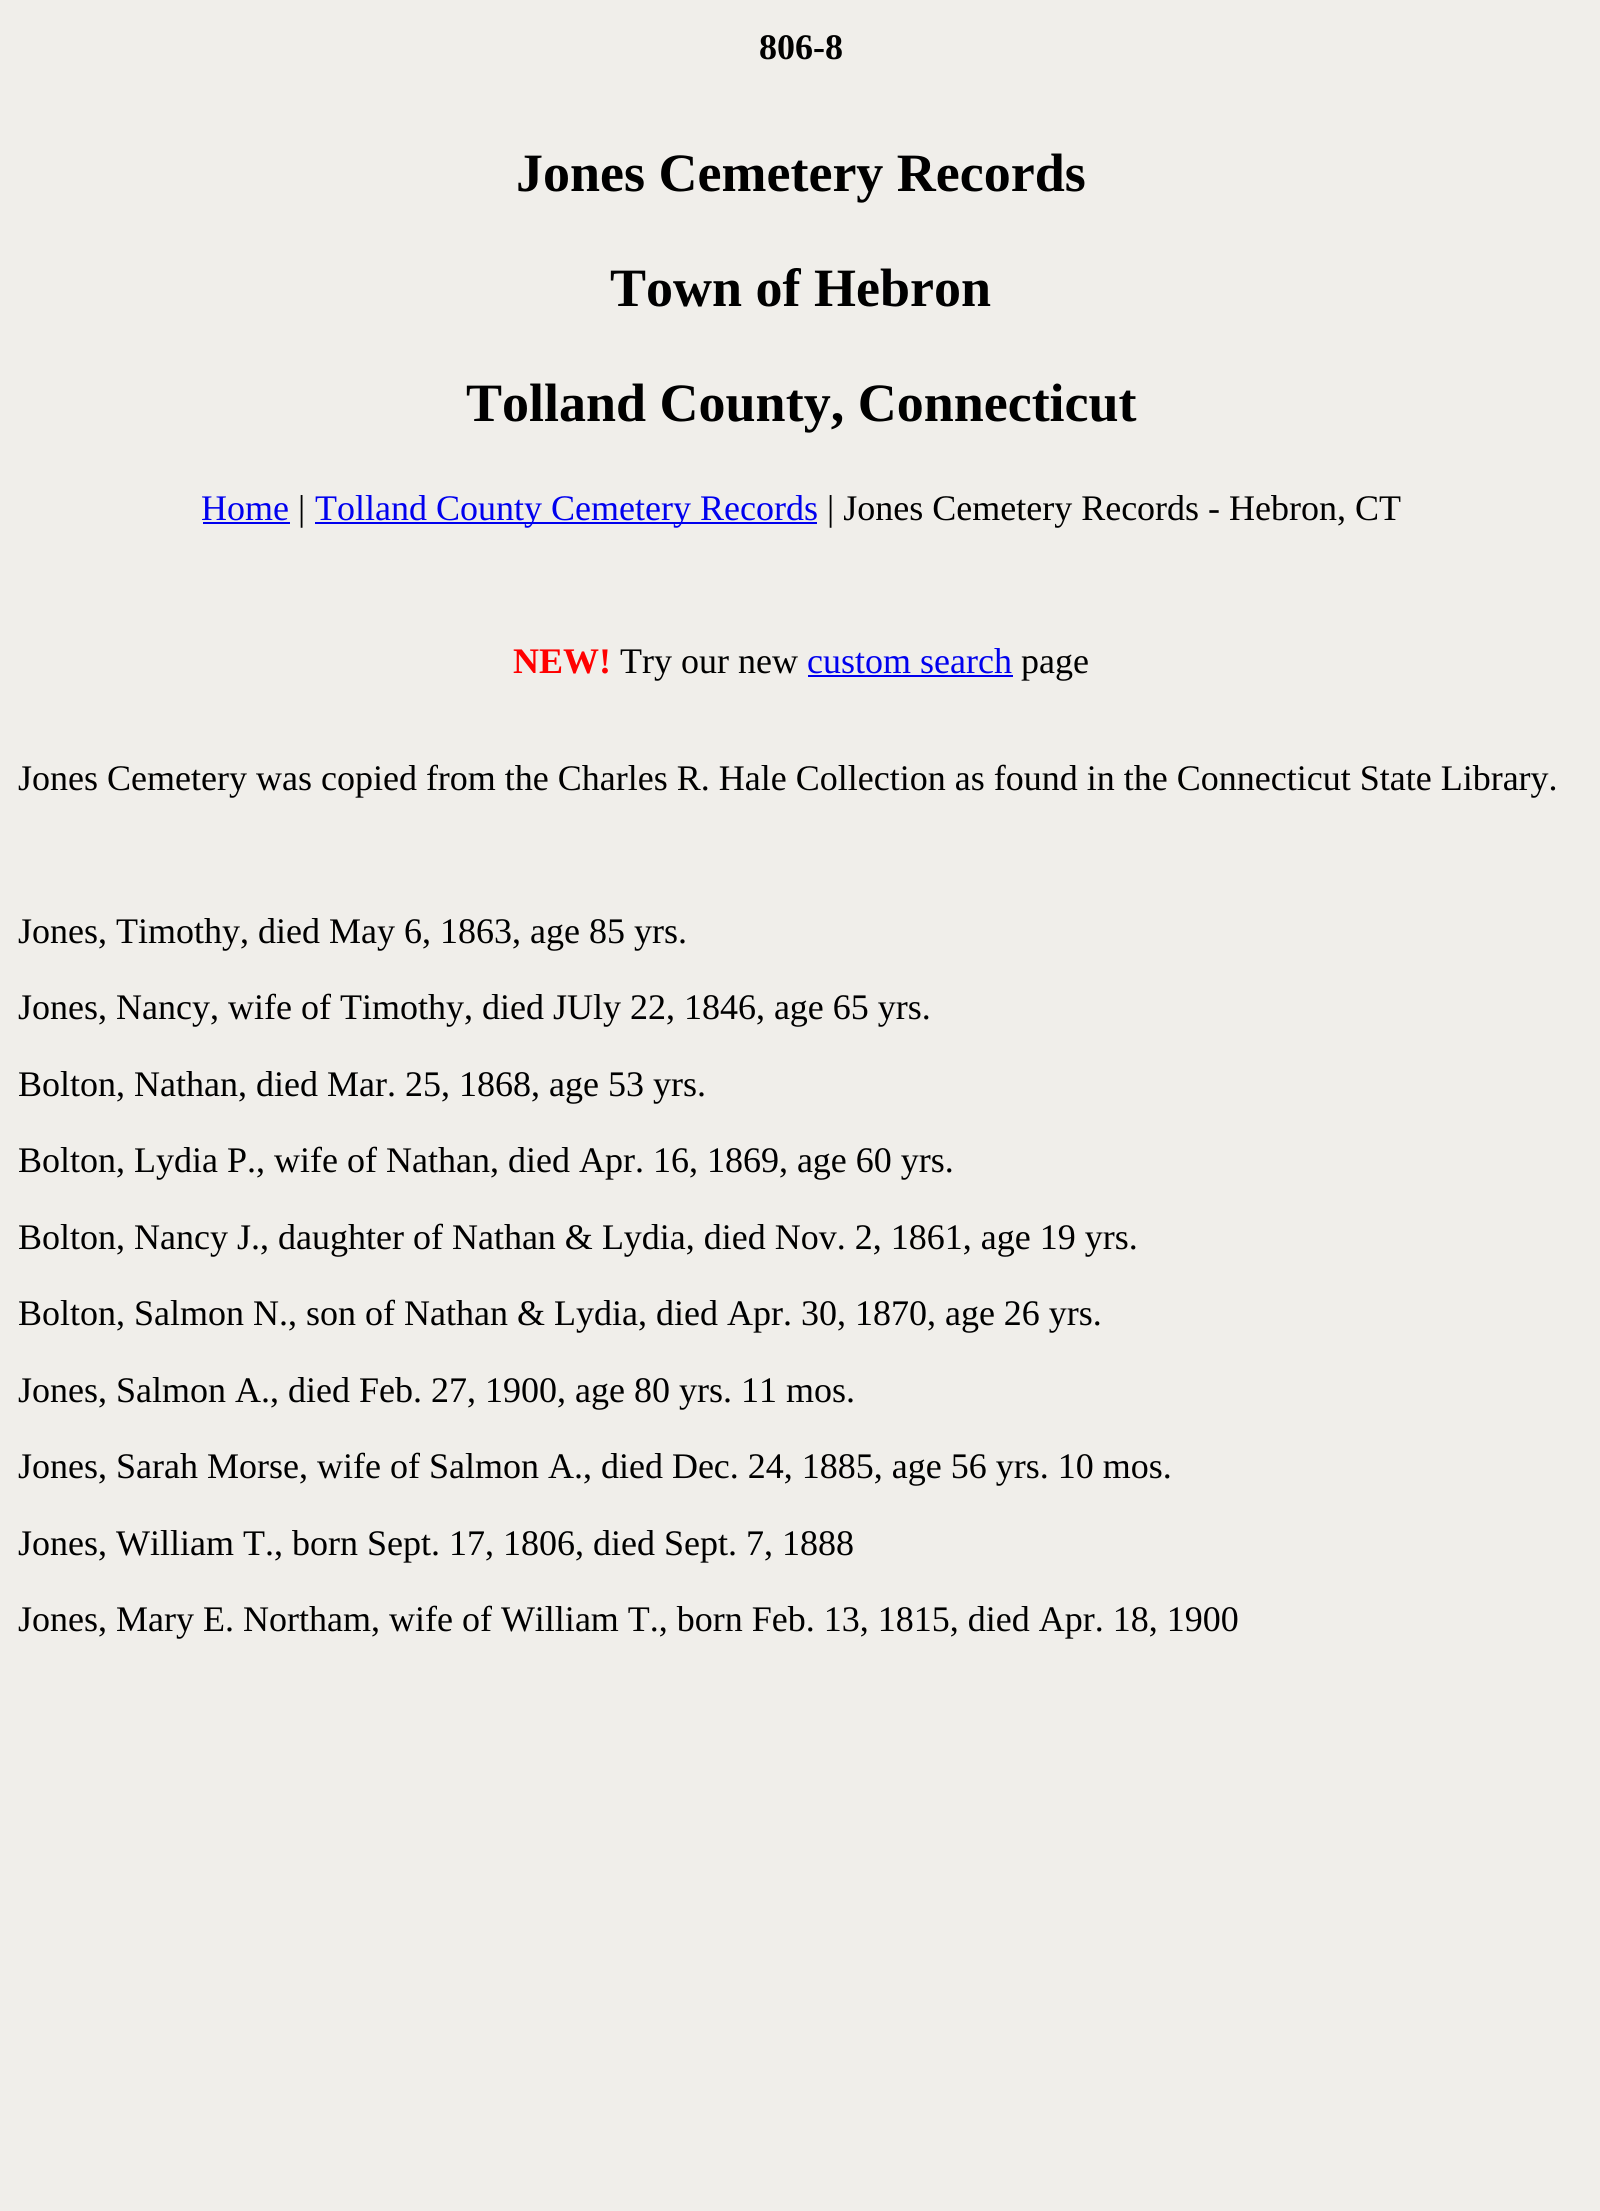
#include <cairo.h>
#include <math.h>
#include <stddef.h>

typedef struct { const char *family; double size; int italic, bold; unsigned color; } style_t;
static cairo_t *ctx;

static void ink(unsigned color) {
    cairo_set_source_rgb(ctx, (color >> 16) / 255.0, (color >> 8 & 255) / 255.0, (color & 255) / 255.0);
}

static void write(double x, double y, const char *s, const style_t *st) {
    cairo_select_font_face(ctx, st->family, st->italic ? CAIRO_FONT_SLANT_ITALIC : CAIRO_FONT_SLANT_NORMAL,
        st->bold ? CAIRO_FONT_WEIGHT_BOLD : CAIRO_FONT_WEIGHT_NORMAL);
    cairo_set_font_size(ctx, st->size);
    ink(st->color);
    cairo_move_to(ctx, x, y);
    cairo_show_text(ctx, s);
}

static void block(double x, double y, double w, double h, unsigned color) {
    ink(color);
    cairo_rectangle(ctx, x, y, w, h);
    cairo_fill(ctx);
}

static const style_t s1 = {"Liberation Serif", 36, 0, 1, 0x000000};
static const style_t s2 = {"Liberation Serif", 54, 0, 1, 0x000000};
static const style_t s3 = {"Liberation Serif", 36, 0, 0, 0x0000ee};
static const style_t s4 = {"Liberation Serif", 36, 0, 0, 0x000000};
static const style_t s5 = {"Liberation Serif", 36, 0, 1, 0xff0000};

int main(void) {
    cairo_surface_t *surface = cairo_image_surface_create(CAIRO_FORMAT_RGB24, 1600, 2211);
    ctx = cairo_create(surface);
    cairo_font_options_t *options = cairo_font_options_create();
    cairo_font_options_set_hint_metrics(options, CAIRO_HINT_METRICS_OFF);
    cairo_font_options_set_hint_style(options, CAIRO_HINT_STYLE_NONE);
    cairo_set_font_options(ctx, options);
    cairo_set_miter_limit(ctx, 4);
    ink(0xf0eeea);
    cairo_paint(ctx);
    write(759, 59, "806-8", &s1);
    write(516, 191, "Jones Cemetery Records", &s2);
    write(610, 306, "Town of Hebron", &s2);
    write(466, 421, "Tolland County, Connecticut", &s2);
    write(201, 520, "Home", &s3);
    block(203, 522, 87, 2, 0x0000ee);
    write(298, 520, "|", &s4);
    block(315, 522, 502, 2, 0x0000ee);
    write(315, 520, "Tolland County Cemetery Records", &s3);
    write(827, 520, "| Jones Cemetery Records - Hebron, CT", &s4);
    write(513, 673, "NEW!", &s5);
    write(620, 673, "Try our new", &s4);
    write(807, 673, "custom search", &s3);
    block(808, 675, 205, 2, 0x0000ee);
    write(1021, 673, "page", &s4);
    write(18, 790, "Jones Cemetery was copied from the Charles R. Hale Collection as found in the Connecticut State Library.", &s4);
    write(18, 943, "Jones, Timothy, died May 6, 1863, age 85 yrs.", &s4);
    write(18, 1019, "Jones, Nancy, wife of Timothy, died JUly 22, 1846, age 65 yrs.", &s4);
    write(18, 1096, "Bolton, Nathan, died Mar. 25, 1868, age 53 yrs.", &s4);
    write(18, 1172, "Bolton, Lydia P., wife of Nathan, died Apr. 16, 1869, age 60 yrs.", &s4);
    write(18, 1249, "Bolton, Nancy J., daughter of Nathan & Lydia, died Nov. 2, 1861, age 19 yrs.", &s4);
    write(18, 1325, "Bolton, Salmon N., son of Nathan & Lydia, died Apr. 30, 1870, age 26 yrs.", &s4);
    write(18, 1402, "Jones, Salmon A., died Feb. 27, 1900, age 80 yrs. 11 mos.", &s4);
    write(18, 1478, "Jones, Sarah Morse, wife of Salmon A., died Dec. 24, 1885, age 56 yrs. 10 mos.", &s4);
    write(18, 1555, "Jones, William T., born Sept. 17, 1806, died Sept. 7, 1888", &s4);
    write(18, 1631, "Jones, Mary E. Northam, wife of William T., born Feb. 13, 1815, died Apr. 18, 1900", &s4);
    cairo_surface_write_to_png(surface, "screenshot.png");
    cairo_font_options_destroy(options);
    cairo_destroy(ctx);
    cairo_surface_destroy(surface);
    return 0;
}
